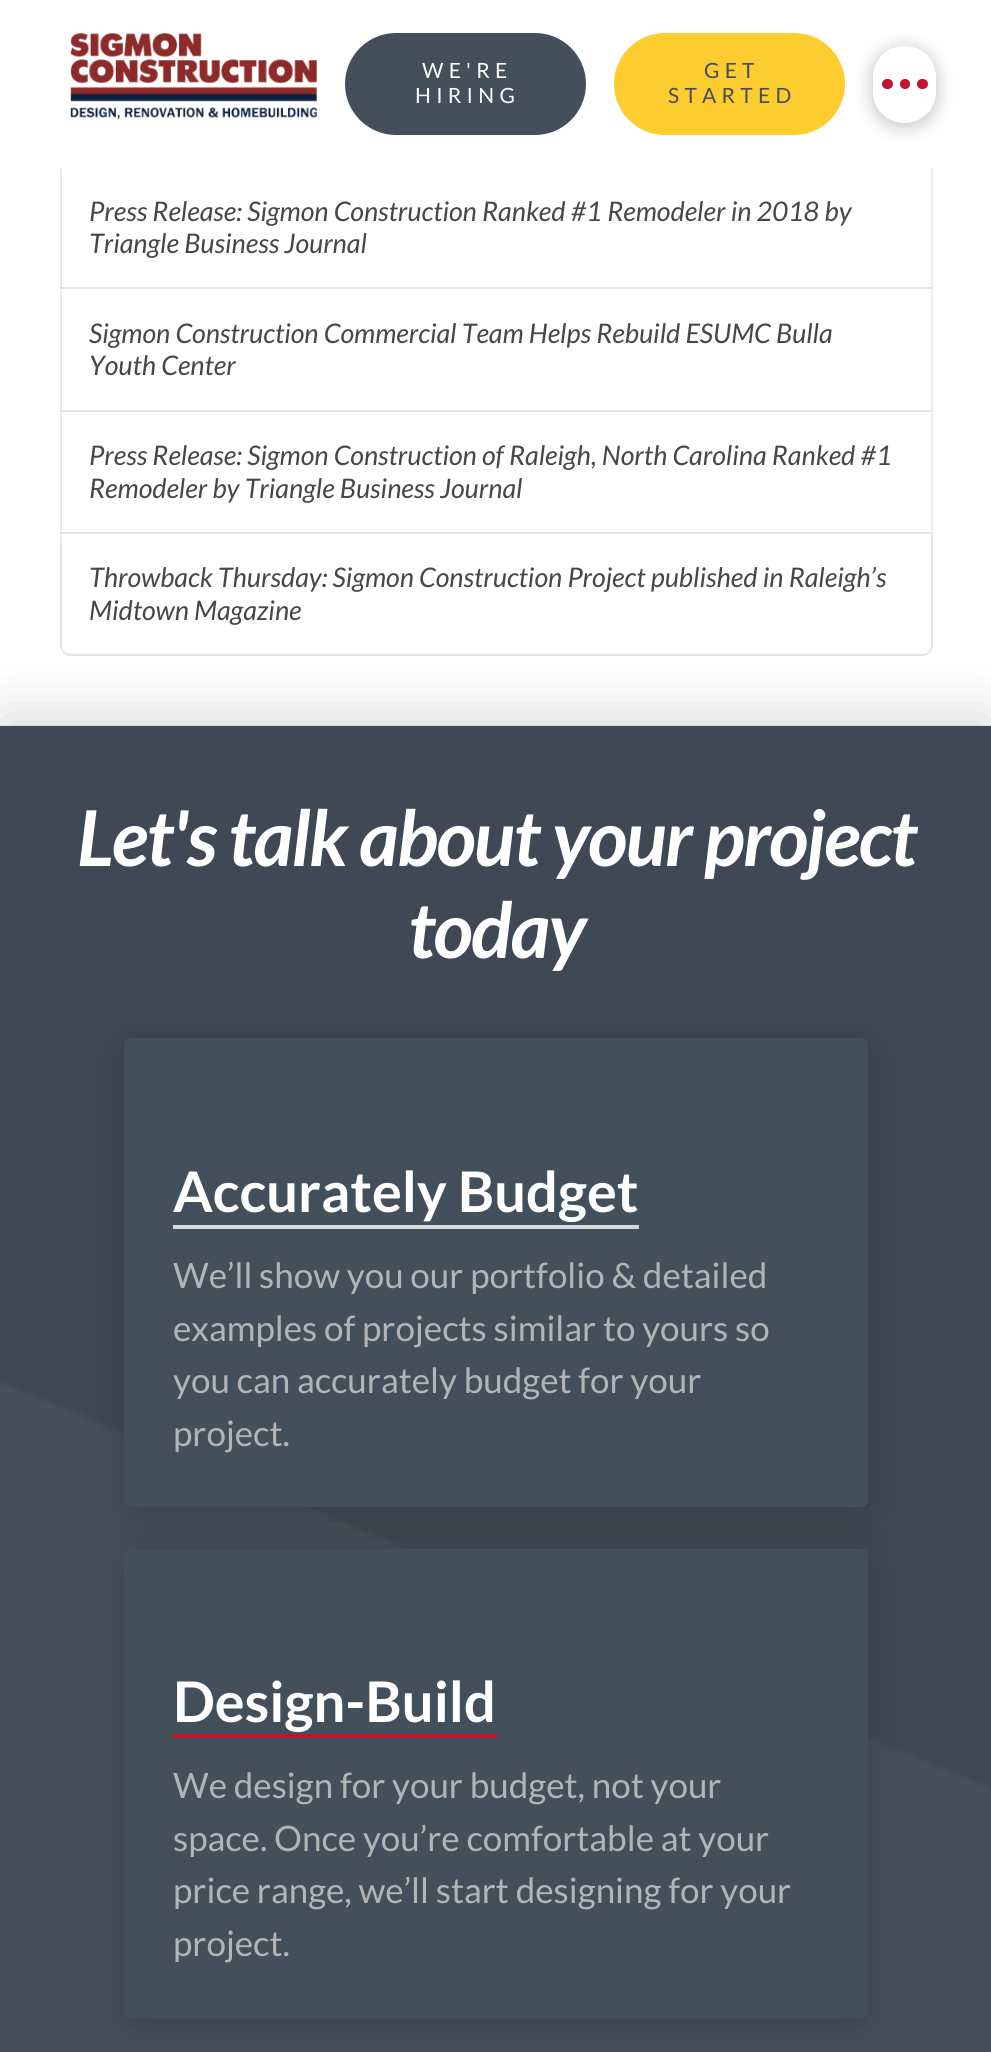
#include <cairo.h>
#include <math.h>
#include <stddef.h>

typedef struct { const char *family; double size; int italic, bold; unsigned color; } style_t;
static cairo_t *ctx;

static void ink(unsigned color) {
    cairo_set_source_rgb(ctx, (color >> 16) / 255.0, (color >> 8 & 255) / 255.0, (color & 255) / 255.0);
}

static void write(double x, double y, const char *s, const style_t *st) {
    cairo_select_font_face(ctx, st->family, st->italic ? CAIRO_FONT_SLANT_ITALIC : CAIRO_FONT_SLANT_NORMAL,
        st->bold ? CAIRO_FONT_WEIGHT_BOLD : CAIRO_FONT_WEIGHT_NORMAL);
    cairo_set_font_size(ctx, st->size);
    ink(st->color);
    cairo_move_to(ctx, x, y);
    cairo_show_text(ctx, s);
}

static void write_spaced(double x, double y, const char *s, double letter, double word) {
    cairo_move_to(ctx, x, y);
    while (*s) {
        char ch[5] = {0};
        int n = 0;
        do ch[n++] = *s++; while ((*s & 0xC0) == 0x80);
        cairo_show_text(ctx, ch);
        cairo_rel_move_to(ctx, letter + word * (*ch == ' '), 0);
    }
}

static void block(double x, double y, double w, double h, unsigned color) {
    ink(color);
    cairo_rectangle(ctx, x, y, w, h);
    cairo_fill(ctx);
}

static void round_path(double x, double y, double w, double h, double r) {
    cairo_new_sub_path(ctx);
    cairo_arc(ctx, x + w - r, y + h - r, r, 0, M_PI / 2);
    cairo_arc(ctx, x + r, y + h - r, r, M_PI / 2, M_PI);
    cairo_arc(ctx, x + r, y + r, r, M_PI, 1.5 * M_PI);
    cairo_arc(ctx, x + w - r, y + r, r, 1.5 * M_PI, 2 * M_PI);
    cairo_close_path(ctx);
}

static void blur_box(double x, double y, double w, double h, double r, double blur, double alpha) {
    cairo_push_group_with_content(ctx, CAIRO_CONTENT_ALPHA);
    cairo_set_operator(ctx, CAIRO_OPERATOR_SOURCE);
    for (int i = 15; i >= -15 && fmin(w, h) + blur * i / 3 > 0; i -= 2) {
        double e = blur * i / 6;
        cairo_set_source_rgba(ctx, 0, 0, 0, alpha * erfc((i - 1) / 8.5) / 2);
        round_path(x - e, y - e, w + 2 * e, h + 2 * e, fmax(0, fmin(r + e + blur * .6, fmin(w, h) / 2 + e)));
        cairo_fill(ctx);
    }
    cairo_pattern_t *soft = cairo_pop_group(ctx);
    cairo_mask(ctx, soft);
    cairo_pattern_destroy(soft);
}

static void paste(const char *path, double x, double y, double w, double h) {
    cairo_surface_t *image = cairo_image_surface_create_from_png(path);
    cairo_save(ctx);
    cairo_set_source_surface(ctx, image, x, y);
    cairo_rectangle(ctx, x, y, w, h);
    cairo_fill(ctx);
    cairo_restore(ctx);
    cairo_surface_destroy(image);
}

static const style_t s1 = {"Lato", 27, 1, 0, 0x484747};
static const style_t s2 = {"Lato", 56, 0, 1, 0xffffff};
static const style_t s3 = {"Lato", 35, 0, 0, 0xb2b5b8};

int main(void) {
    cairo_surface_t *surface = cairo_image_surface_create(CAIRO_FORMAT_RGB24, 991, 2052);
    ctx = cairo_create(surface);
    cairo_font_options_t *options = cairo_font_options_create();
    cairo_font_options_set_hint_metrics(options, CAIRO_HINT_METRICS_OFF);
    cairo_font_options_set_hint_style(options, CAIRO_HINT_STYLE_NONE);
    cairo_set_font_options(ctx, options);
    cairo_set_miter_limit(ctx, 4);
    ink(0xffffff);
    cairo_paint(ctx);
    round_path(61, 43, 871, 612, 10);
    ink(0xe6e6e6);
    cairo_stroke(ctx);
    ink(0xffffff);
    blur_box(61, 46, 870, 122, 0, 1, 0.95);
    cairo_save(ctx);
    cairo_set_fill_rule(ctx, CAIRO_FILL_RULE_EVEN_ODD);
    cairo_new_path(ctx);
    cairo_move_to(ctx, 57, 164);
    cairo_line_to(ctx, 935, 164);
    cairo_line_to(ctx, 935, 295);
    cairo_line_to(ctx, 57, 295);
    cairo_close_path(ctx);
    cairo_move_to(ctx, 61, 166);
    cairo_line_to(ctx, 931, 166);
    cairo_line_to(ctx, 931, 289);
    cairo_line_to(ctx, 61, 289);
    cairo_close_path(ctx);
    cairo_clip(ctx);
    blur_box(61, 168, 870, 123, 0, 1, 0.95);
    cairo_restore(ctx);
    block(60, 42, 873, 126, 0xffffff);
    paste("pic1.png", 70, 33, 247, 87);
    ink(0x434f5a);
    round_path(345, 33, 241, 102, 51);
    cairo_fill(ctx);
    cairo_select_font_face(ctx, "Lato", CAIRO_FONT_SLANT_NORMAL, CAIRO_FONT_WEIGHT_NORMAL);
    cairo_set_font_size(ctx, 21);
    ink(0xffffff);
    write_spaced(422, 78, "WE'RE", 5.25, 0);
    write_spaced(415, 103, "HIRING", 5.25, 0);
    ink(0xfdcc2f);
    round_path(616, 35, 227, 98, 49);
    cairo_fill_preserve(ctx);
    cairo_set_line_width(ctx, 4);
    cairo_stroke(ctx);
    ink(0x434f5a);
    write_spaced(704, 78, "GET", 5.25, 0);
    write_spaced(668, 103, "STARTED", 5.25, 0);
    cairo_save(ctx);
    cairo_set_fill_rule(ctx, CAIRO_FILL_RULE_EVEN_ODD);
    cairo_new_path(ctx);
    cairo_move_to(ctx, 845, 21);
    cairo_line_to(ctx, 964, 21);
    cairo_line_to(ctx, 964, 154);
    cairo_line_to(ctx, 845, 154);
    cairo_close_path(ctx);
    cairo_move_to(ctx, 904.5, 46);
    cairo_curve_to(ctx, 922, 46, 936, 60, 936, 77.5);
    cairo_line_to(ctx, 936, 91.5);
    cairo_curve_to(ctx, 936, 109, 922, 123, 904.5, 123);
    cairo_curve_to(ctx, 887, 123, 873, 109, 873, 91.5);
    cairo_line_to(ctx, 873, 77.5);
    cairo_curve_to(ctx, 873, 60, 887, 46, 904.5, 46);
    cairo_close_path(ctx);
    cairo_clip(ctx);
    ink(0x000000);
    blur_box(873, 49, 63, 77, 31.5, 9, 0.25);
    cairo_restore(ctx);
    cairo_set_source_rgba(ctx, 1, 1, 1, 0.25);
    round_path(873, 46, 63, 77, 31.5);
    cairo_fill(ctx);
    ink(0xc41230);
    round_path(882, 79, 11, 10, 5);
    cairo_fill(ctx);
    cairo_arc(ctx, 905, 84, 5, 0, 2 * M_PI);
    cairo_fill(ctx);
    round_path(917, 79, 11, 10, 5);
    cairo_fill(ctx);
    cairo_set_source_rgba(ctx, 0, 0, 0, 0.1);
    cairo_rectangle(ctx, 61, 287, 870, 2);
    cairo_fill(ctx);
    write(89, 221, "Press Release: Sigmon Construction Ranked #1 Remodeler in 2018 by", &s1);
    write(89, 253, "Triangle Business Journal", &s1);
    cairo_save(ctx);
    cairo_set_fill_rule(ctx, CAIRO_FILL_RULE_EVEN_ODD);
    cairo_new_path(ctx);
    cairo_move_to(ctx, 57, 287);
    cairo_line_to(ctx, 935, 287);
    cairo_line_to(ctx, 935, 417);
    cairo_line_to(ctx, 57, 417);
    cairo_close_path(ctx);
    cairo_move_to(ctx, 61, 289);
    cairo_line_to(ctx, 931, 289);
    cairo_line_to(ctx, 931, 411);
    cairo_line_to(ctx, 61, 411);
    cairo_close_path(ctx);
    cairo_clip(ctx);
    ink(0xffffff);
    blur_box(61, 291, 870, 122, 0, 1, 0.95);
    cairo_restore(ctx);
    cairo_set_source_rgba(ctx, 0, 0, 0, 0.1);
    cairo_rectangle(ctx, 61, 410, 870, 2);
    cairo_fill(ctx);
    write(89, 343, "Sigmon Construction Commercial Team Helps Rebuild ESUMC Bulla", &s1);
    write(89, 375, "Youth Center", &s1);
    cairo_save(ctx);
    cairo_set_fill_rule(ctx, CAIRO_FILL_RULE_EVEN_ODD);
    cairo_new_path(ctx);
    cairo_move_to(ctx, 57, 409);
    cairo_line_to(ctx, 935, 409);
    cairo_line_to(ctx, 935, 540);
    cairo_line_to(ctx, 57, 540);
    cairo_close_path(ctx);
    cairo_move_to(ctx, 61, 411);
    cairo_line_to(ctx, 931, 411);
    cairo_line_to(ctx, 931, 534);
    cairo_line_to(ctx, 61, 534);
    cairo_close_path(ctx);
    cairo_clip(ctx);
    ink(0xffffff);
    blur_box(61, 413, 870, 123, 0, 1, 0.95);
    cairo_restore(ctx);
    cairo_set_source_rgba(ctx, 0, 0, 0, 0.1);
    cairo_rectangle(ctx, 61, 532, 870, 2);
    cairo_fill(ctx);
    write(89, 465, "Press Release: Sigmon Construction of Raleigh, North Carolina Ranked #1", &s1);
    write(89, 498, "Remodeler by Triangle Business Journal", &s1);
    cairo_save(ctx);
    round_path(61, 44, 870, 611, 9);
    cairo_clip(ctx);
    cairo_set_fill_rule(ctx, CAIRO_FILL_RULE_EVEN_ODD);
    cairo_new_path(ctx);
    cairo_move_to(ctx, 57, 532);
    cairo_line_to(ctx, 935, 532);
    cairo_line_to(ctx, 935, 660);
    cairo_line_to(ctx, 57, 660);
    cairo_close_path(ctx);
    cairo_move_to(ctx, 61, 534);
    cairo_line_to(ctx, 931, 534);
    cairo_line_to(ctx, 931, 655);
    cairo_line_to(ctx, 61, 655);
    cairo_close_path(ctx);
    cairo_clip(ctx);
    ink(0xffffff);
    blur_box(61, 536, 870, 120, 0, 1, 0.95);
    cairo_restore(ctx);
    write(89, 587, "Throwback Thursday: Sigmon Construction Project published in Raleigh’s", &s1);
    write(89, 620, "Midtown Magazine", &s1);
    ink(0x000000);
    blur_box(0, 716, 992, 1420, 0, 28, 0.15);
    paste("pic2.png", 0, 725, 991, 1327);
    cairo_select_font_face(ctx, "Lato", CAIRO_FONT_SLANT_ITALIC, CAIRO_FONT_WEIGHT_BOLD);
    cairo_set_font_size(ctx, 77);
    ink(0xffffff);
    write_spaced(77, 866, "Let's talk about your project", -1.9, 0);
    write_spaced(408, 958, "today", -1.9, 0);
    ink(0x000000);
    blur_box(124, 1048, 744, 469, 7, 28, 0.15);
    ink(0x434f5a);
    round_path(124, 1038, 744, 469, 7);
    cairo_fill(ctx);
    block(173, 1225, 466, 4, 0xd7d7d7);
    write(173, 1212, "Accurately Budget", &s2);
    write(173, 1288, "We’ll show you our portfolio & detailed", &s3);
    write(173, 1341, "examples of projects similar to yours so", &s3);
    write(173, 1393, "you can accurately budget for your", &s3);
    write(173, 1446, "project.", &s3);
    ink(0x000000);
    blur_box(124, 1559, 744, 469, 7, 28, 0.15);
    ink(0x434f5a);
    round_path(124, 1549, 744, 469, 7);
    cairo_fill(ctx);
    block(173, 1734, 324, 4, 0xc41230);
    write(173, 1722, "Design-Build", &s2);
    write(173, 1798, "We design for your budget, not your", &s3);
    write(173, 1851, "space. Once you’re comfortable at your", &s3);
    write(173, 1903, "price range, we’ll start designing for your", &s3);
    write(173, 1956, "project.", &s3);
    cairo_surface_write_to_png(surface, "screenshot.png");
    cairo_font_options_destroy(options);
    cairo_destroy(ctx);
    cairo_surface_destroy(surface);
    return 0;
}
